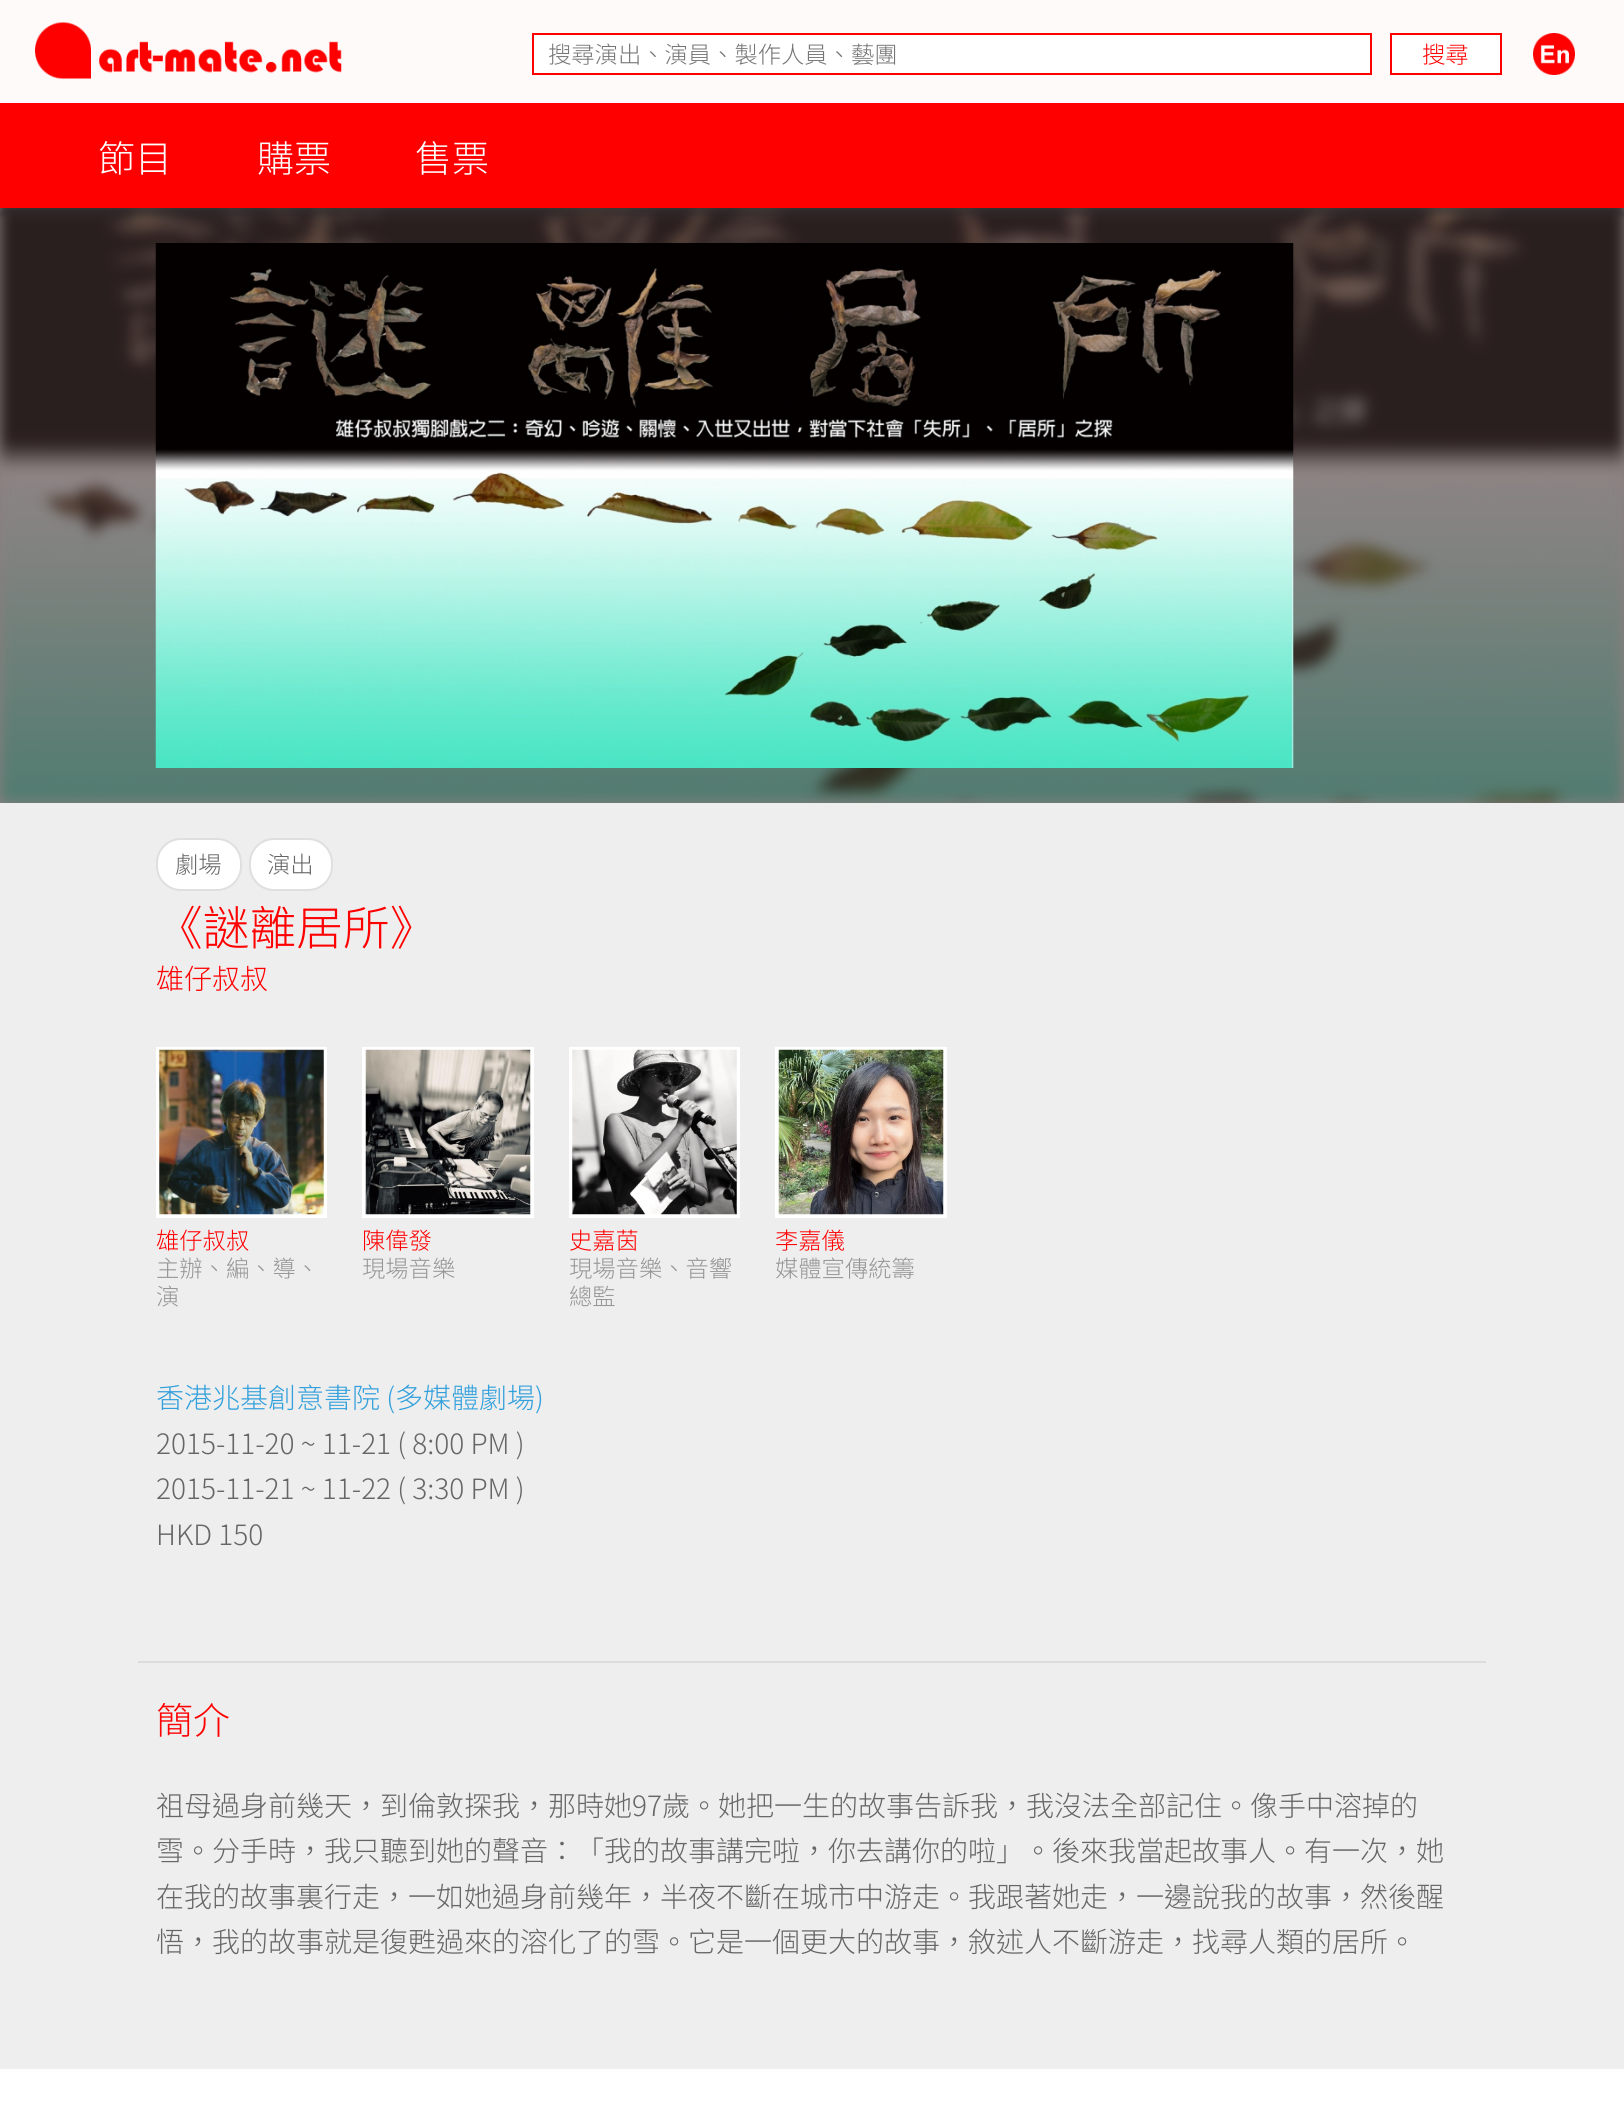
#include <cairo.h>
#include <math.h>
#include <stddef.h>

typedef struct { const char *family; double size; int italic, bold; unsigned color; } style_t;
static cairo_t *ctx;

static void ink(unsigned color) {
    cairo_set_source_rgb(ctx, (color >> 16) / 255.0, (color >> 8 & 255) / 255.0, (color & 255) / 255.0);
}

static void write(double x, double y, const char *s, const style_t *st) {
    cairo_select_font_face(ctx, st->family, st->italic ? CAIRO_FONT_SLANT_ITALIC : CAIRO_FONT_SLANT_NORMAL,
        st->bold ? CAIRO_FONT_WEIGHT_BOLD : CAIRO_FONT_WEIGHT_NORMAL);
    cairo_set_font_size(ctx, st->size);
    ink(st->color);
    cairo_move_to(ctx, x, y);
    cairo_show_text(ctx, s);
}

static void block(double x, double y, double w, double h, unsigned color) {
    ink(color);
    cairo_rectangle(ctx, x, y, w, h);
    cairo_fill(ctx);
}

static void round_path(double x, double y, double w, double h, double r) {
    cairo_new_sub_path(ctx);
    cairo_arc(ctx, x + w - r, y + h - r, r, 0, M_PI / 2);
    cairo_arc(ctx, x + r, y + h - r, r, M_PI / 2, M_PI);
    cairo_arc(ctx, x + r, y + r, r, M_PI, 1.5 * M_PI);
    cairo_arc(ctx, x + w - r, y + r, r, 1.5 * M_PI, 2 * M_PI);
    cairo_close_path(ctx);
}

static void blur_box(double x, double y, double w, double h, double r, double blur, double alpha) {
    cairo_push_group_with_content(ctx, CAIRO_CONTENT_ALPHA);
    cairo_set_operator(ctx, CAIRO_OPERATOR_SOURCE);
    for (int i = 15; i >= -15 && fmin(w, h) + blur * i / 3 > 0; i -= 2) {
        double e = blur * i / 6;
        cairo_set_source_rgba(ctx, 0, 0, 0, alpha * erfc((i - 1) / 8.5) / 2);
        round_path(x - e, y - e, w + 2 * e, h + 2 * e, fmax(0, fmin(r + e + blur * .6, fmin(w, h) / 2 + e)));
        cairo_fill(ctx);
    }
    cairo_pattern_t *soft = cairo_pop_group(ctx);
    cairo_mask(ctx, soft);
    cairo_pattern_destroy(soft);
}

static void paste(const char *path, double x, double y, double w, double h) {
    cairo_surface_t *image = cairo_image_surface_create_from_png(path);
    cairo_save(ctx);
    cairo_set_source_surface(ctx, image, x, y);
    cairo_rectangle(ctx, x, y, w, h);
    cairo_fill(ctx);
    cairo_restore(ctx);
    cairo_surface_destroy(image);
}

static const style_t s1 = {"Noto Sans HK Thin", 23.3, 0, 0, 0x757575};
static const style_t s2 = {"Noto Sans HK Thin", 23.3, 0, 0, 0xff0000};
static const style_t s3 = {"Noto Sans HK Thin", 37, 0, 0, 0xffffff};
static const style_t s4 = {"Noto Sans HK Thin", 23.3, 0, 0, 0x666666};
static const style_t s5 = {"Noto Sans HK Thin", 46.75, 0, 0, 0xff0000};
static const style_t s6 = {"Noto Sans HK Thin", 28, 0, 0, 0xff0000};
static const style_t s7 = {"Noto Sans HK Thin", 23.3, 0, 0, 0x959595};
static const style_t s8 = {"Noto Sans HK Thin", 28, 0, 0, 0x32a0dc};
static const style_t s9 = {"Noto Sans HK Thin", 28, 0, 0, 0x666666};
static const style_t s10 = {"Noto Sans HK Thin", 37, 0, 0, 0xff0000};

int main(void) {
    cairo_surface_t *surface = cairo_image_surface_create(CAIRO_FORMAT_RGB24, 1624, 2123);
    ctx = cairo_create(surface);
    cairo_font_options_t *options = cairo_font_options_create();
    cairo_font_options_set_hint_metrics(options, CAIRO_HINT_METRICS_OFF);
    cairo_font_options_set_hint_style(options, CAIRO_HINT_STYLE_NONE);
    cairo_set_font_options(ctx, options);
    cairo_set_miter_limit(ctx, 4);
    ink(0xeeeeee);
    cairo_paint(ctx);
    block(0, 208, 1624, 595, 0x887e7e);
    block(0, 0, 1624, 103, 0xfffafa);
    paste("pic1.png", 35, 22, 307, 57);
    ink(0xffffff);
    cairo_rectangle(ctx, 533, 34, 838, 40);
    cairo_fill_preserve(ctx);
    ink(0xff0000);
    cairo_stroke(ctx);
    write(548, 63, "搜尋演出、演員、製作人員、藝團", &s1);
    ink(0xffffff);
    cairo_rectangle(ctx, 1391, 34, 110, 40);
    cairo_fill_preserve(ctx);
    ink(0xff0000);
    cairo_stroke(ctx);
    write(1422, 63, "搜尋", &s2);
    paste("pic2.png", 1533, 33, 42, 42);
    paste("pic3.png", 0, 208, 1624, 595);
    ink(0x000000);
    blur_box(0, 110, 1624, 105, 0, 3.5, 0.4);
    block(0, 103, 1624, 105, 0xff0000);
    write(98, 172, "節目", &s3);
    write(257, 172, "購票", &s3);
    write(415, 172, "售票", &s3);
    paste("pic4.png", 155, 243, 1139, 525);
    round_path(157, 839, 84, 51, 24);
    cairo_fill_preserve(ctx);
    ink(0xdfdfdf);
    cairo_stroke(ctx);
    write(175, 873, "劇場", &s4);
    ink(0xffffff);
    round_path(250, 839, 82, 51, 24);
    cairo_fill_preserve(ctx);
    ink(0xdfdfdf);
    cairo_stroke(ctx);
    write(267, 873, "演出", &s4);
    write(156, 945, "《謎離居所》", &s5);
    write(156, 989, "雄仔叔叔", &s6);
    block(156, 1047, 171, 171, 0xffffff);
    paste("pic5.png", 159, 1049, 165, 166);
    write(156, 1249, "雄仔叔叔", &s2);
    write(156, 1277, "主辦、編、導、", &s7);
    write(156, 1305, "演", &s7);
    block(362, 1047, 172, 171, 0xffffff);
    paste("pic6.png", 365, 1049, 166, 166);
    write(362, 1249, "陳偉發", &s2);
    write(362, 1277, "現場音樂", &s7);
    block(569, 1047, 171, 171, 0xffffff);
    paste("pic7.png", 572, 1049, 165, 166);
    write(569, 1249, "史嘉茵", &s2);
    write(569, 1277, "現場音樂、音響", &s7);
    write(569, 1305, "總監", &s7);
    block(775, 1047, 172, 171, 0xffffff);
    paste("pic8.png", 778, 1049, 166, 166);
    write(775, 1249, "李嘉儀", &s2);
    write(775, 1277, "媒體宣傳統籌", &s7);
    write(156, 1408, "香港兆基創意書院 (多媒體劇場)", &s8);
    write(156, 1454, "2015-11-20 ~ 11-21 ( 8:00 PM )", &s9);
    write(156, 1499, "2015-11-21 ~ 11-22 ( 3:30 PM )", &s9);
    write(156, 1545, "HKD 150", &s9);
    block(138, 1661, 1348, 2, 0xdddddd);
    write(156, 1734, "簡介", &s10);
    write(156, 1816, "祖母過身前幾天，到倫敦探我，那時她97歲。她把一生的故事告訴我，我沒法全部記住。像手中溶掉的", &s9);
    write(156, 1861, "雪。分手時，我只聽到她的聲音：「我的故事講完啦，你去講你的啦」。後來我當起故事人。有一次，她", &s9);
    write(156, 1907, "在我的故事裏行走，一如她過身前幾年，半夜不斷在城市中游走。我跟著她走，一邊說我的故事，然後醒", &s9);
    write(156, 1952, "悟，我的故事就是復甦過來的溶化了的雪。它是一個更大的故事，敘述人不斷游走，找尋人類的居所。", &s9);
    block(0, 2069, 1624, 54, 0xffffff);
    cairo_surface_write_to_png(surface, "screenshot.png");
    cairo_font_options_destroy(options);
    cairo_destroy(ctx);
    cairo_surface_destroy(surface);
    return 0;
}
